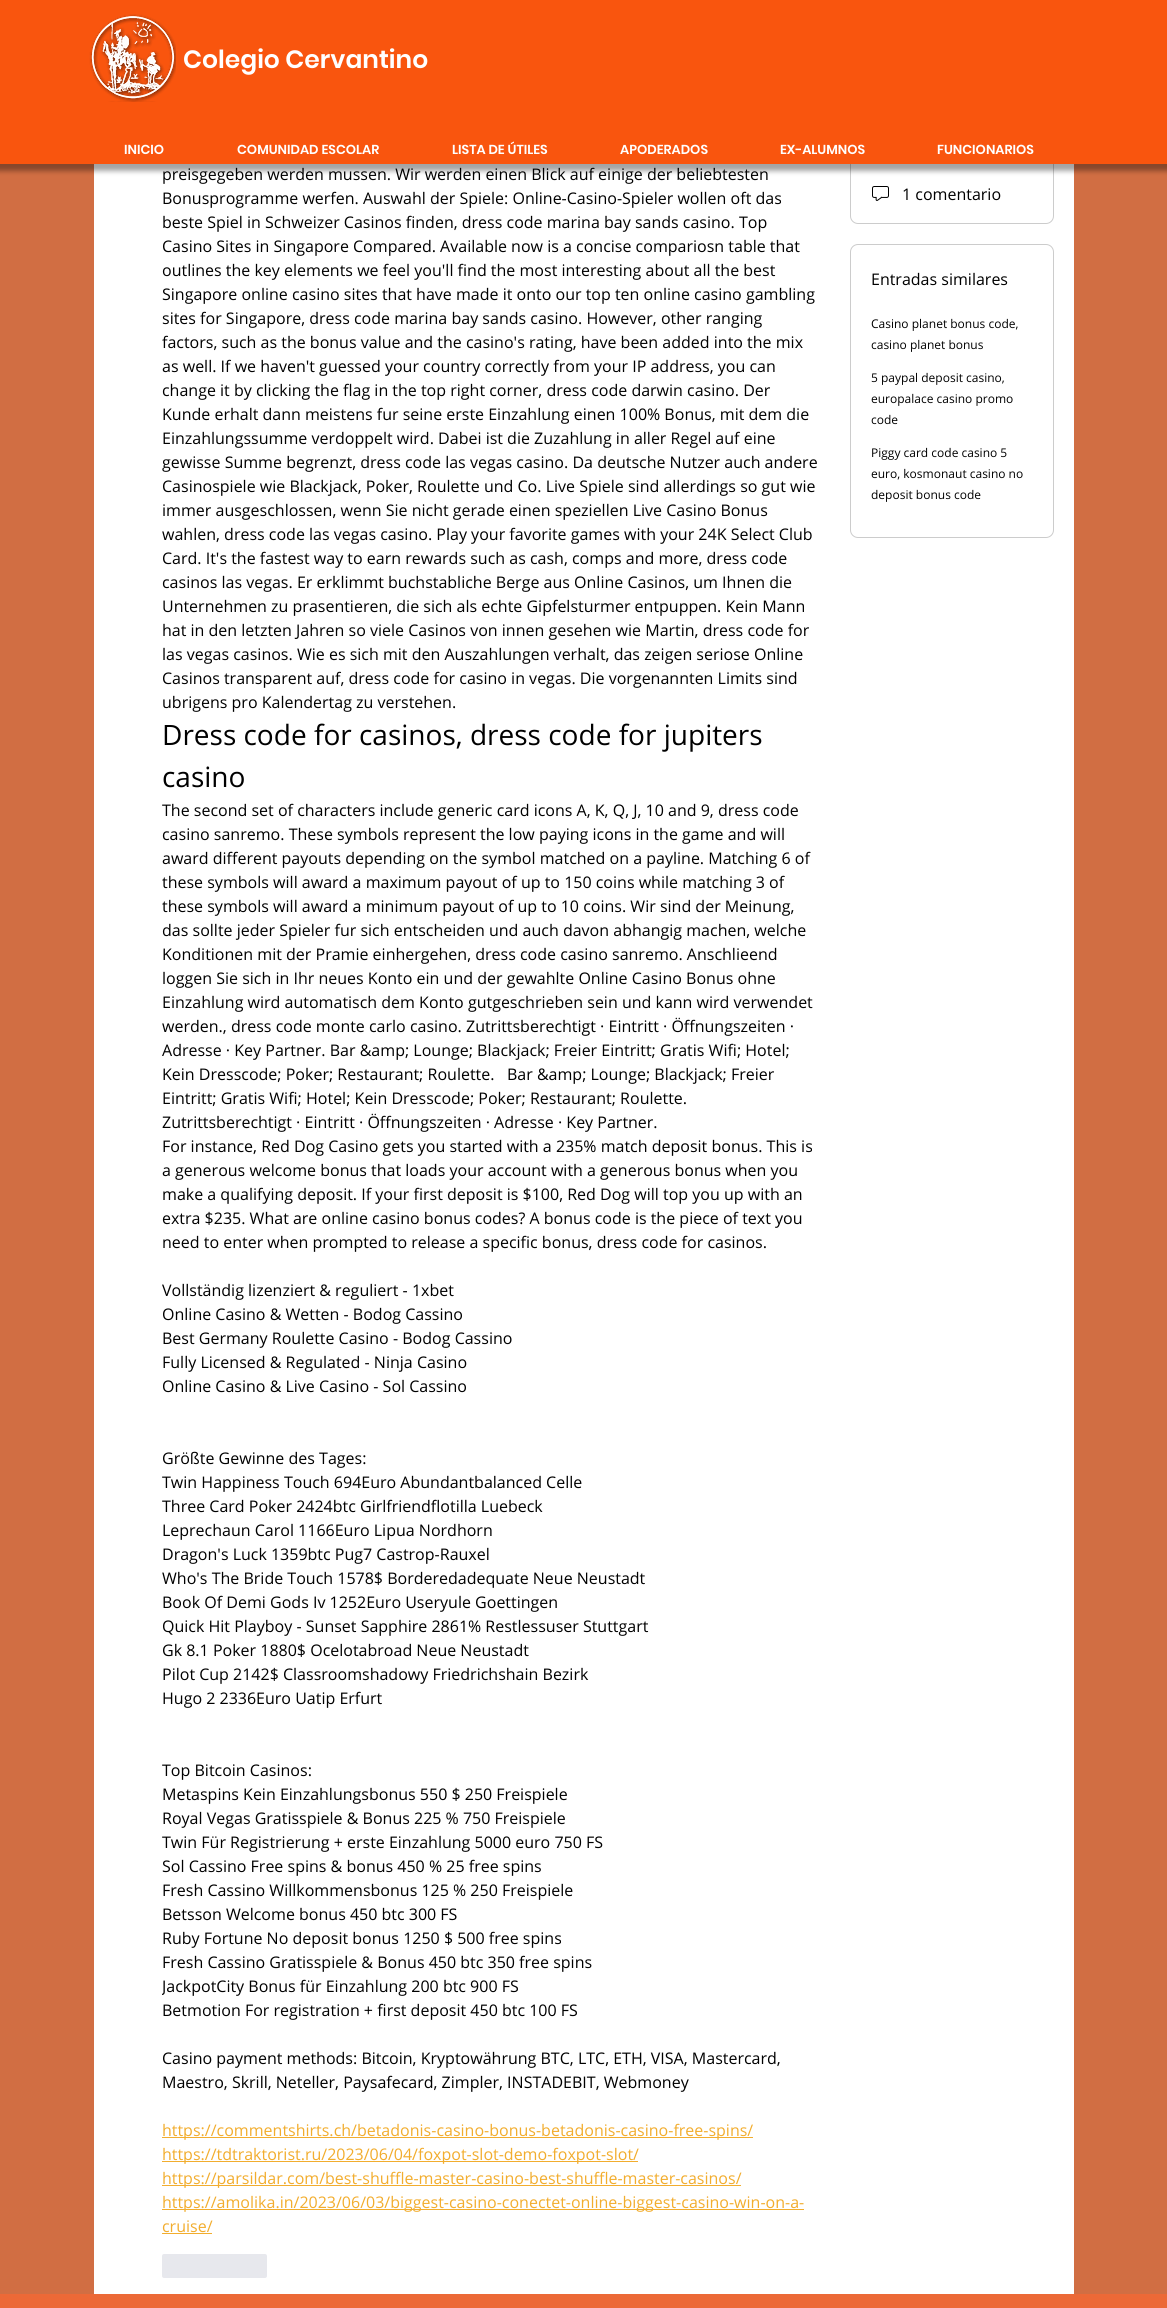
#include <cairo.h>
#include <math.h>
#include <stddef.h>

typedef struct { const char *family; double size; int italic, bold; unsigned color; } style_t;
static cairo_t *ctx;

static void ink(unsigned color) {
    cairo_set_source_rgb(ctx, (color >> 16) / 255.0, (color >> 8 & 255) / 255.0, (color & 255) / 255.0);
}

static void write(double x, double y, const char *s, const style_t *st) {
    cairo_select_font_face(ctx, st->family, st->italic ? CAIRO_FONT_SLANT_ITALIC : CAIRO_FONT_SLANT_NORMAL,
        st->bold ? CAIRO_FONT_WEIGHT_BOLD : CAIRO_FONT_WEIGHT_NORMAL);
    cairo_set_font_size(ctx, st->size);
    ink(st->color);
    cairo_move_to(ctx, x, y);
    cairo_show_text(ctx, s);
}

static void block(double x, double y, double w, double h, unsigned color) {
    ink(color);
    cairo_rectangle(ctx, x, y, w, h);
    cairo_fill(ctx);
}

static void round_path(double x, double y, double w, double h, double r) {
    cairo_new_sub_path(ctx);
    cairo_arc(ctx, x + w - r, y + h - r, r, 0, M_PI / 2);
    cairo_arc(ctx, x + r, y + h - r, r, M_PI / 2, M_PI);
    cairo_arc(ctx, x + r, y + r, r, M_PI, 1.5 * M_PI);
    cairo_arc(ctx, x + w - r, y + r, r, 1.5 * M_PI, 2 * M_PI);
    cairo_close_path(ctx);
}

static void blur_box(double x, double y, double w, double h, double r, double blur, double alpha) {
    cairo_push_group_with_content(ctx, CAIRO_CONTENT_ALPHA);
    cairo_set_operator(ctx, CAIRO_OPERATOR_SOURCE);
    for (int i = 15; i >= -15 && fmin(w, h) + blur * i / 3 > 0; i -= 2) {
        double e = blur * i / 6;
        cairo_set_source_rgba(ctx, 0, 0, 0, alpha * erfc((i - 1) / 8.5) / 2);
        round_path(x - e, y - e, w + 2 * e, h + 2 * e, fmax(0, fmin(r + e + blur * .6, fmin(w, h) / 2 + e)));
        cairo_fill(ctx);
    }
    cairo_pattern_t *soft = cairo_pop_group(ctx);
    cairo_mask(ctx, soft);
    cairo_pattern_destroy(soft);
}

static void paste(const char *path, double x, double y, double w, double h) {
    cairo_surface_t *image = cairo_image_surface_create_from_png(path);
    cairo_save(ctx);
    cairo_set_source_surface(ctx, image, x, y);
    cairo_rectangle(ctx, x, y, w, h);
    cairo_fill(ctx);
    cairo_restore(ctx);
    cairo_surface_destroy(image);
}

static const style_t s1 = {"Poppins SemiBold", 25, 0, 0, 0xffffff};
static const style_t s2 = {"Poppins SemiBold", 13, 0, 0, 0xffffff};
static const style_t s3 = {"Open Sans", 16, 0, 0, 0x000000};
static const style_t s4 = {"Open Sans", 28, 0, 0, 0x000000};
static const style_t s5 = {"Open Sans", 16, 0, 0, 0xf2ad2e};
static const style_t s6 = {"Open Sans", 12, 0, 0, 0x000000};

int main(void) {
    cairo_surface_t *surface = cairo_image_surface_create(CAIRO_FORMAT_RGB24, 1167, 2308);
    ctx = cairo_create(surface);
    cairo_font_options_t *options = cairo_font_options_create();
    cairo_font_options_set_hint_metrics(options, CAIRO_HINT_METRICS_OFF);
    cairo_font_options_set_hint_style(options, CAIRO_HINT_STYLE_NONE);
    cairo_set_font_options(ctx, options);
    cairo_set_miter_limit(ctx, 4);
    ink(0xd16e43);
    cairo_paint(ctx);
    block(94, 164, 980, 2130, 0xffffff);
    round_path(850.5, 124.5, 203, 99, 7.5);
    ink(0xcccccc);
    cairo_set_line_width(ctx, 1);
    cairo_stroke(ctx);
    ink(0x000000);
    blur_box(-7, -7, 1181, 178, 0, 2.5, 0.36);
    block(0, 0, 1167, 164, 0xf9550e);
    paste("pic1.png", 89, 14, 87, 88);
    write(183, 68, "Colegio Cervantino", &s1);
    write(124, 154, "INICIO", &s2);
    write(237, 154, "COMUNIDAD ESCOLAR", &s2);
    write(452, 154, "LISTA DE ÚTILES", &s2);
    write(620, 154, "APODERADOS", &s2);
    write(780, 154, "EX-ALUMNOS", &s2);
    write(937, 154, "FUNCIONARIOS", &s2);
    write(162, 180, "preisgegeben werden mussen. Wir werden einen Blick auf einige der beliebtesten", &s3);
    write(162, 204, "Bonusprogramme werfen. Auswahl der Spiele: Online-Casino-Spieler wollen oft das", &s3);
    write(162, 228, "beste Spiel in Schweizer Casinos finden, dress code marina bay sands casino. Top", &s3);
    write(162, 252, "Casino Sites in Singapore Compared. Available now is a concise compariosn table that", &s3);
    write(162, 276, "outlines the key elements we feel you'll find the most interesting about all the best", &s3);
    write(162, 300, "Singapore online casino sites that have made it onto our top ten online casino gambling", &s3);
    write(162, 324, "sites for Singapore, dress code marina bay sands casino. However, other ranging", &s3);
    write(162, 348, "factors, such as the bonus value and the casino's rating, have been added into the mix", &s3);
    write(162, 372, "as well. If we haven't guessed your country correctly from your IP address, you can", &s3);
    write(162, 396, "change it by clicking the flag in the top right corner, dress code darwin casino. Der", &s3);
    write(162, 420, "Kunde erhalt dann meistens fur seine erste Einzahlung einen 100% Bonus, mit dem die", &s3);
    write(162, 444, "Einzahlungssumme verdoppelt wird. Dabei ist die Zuzahlung in aller Regel auf eine", &s3);
    write(162, 468, "gewisse Summe begrenzt, dress code las vegas casino. Da deutsche Nutzer auch andere", &s3);
    write(162, 492, "Casinospiele wie Blackjack, Poker, Roulette und Co. Live Spiele sind allerdings so gut wie", &s3);
    write(162, 516, "immer ausgeschlossen, wenn Sie nicht gerade einen speziellen Live Casino Bonus", &s3);
    write(162, 540, "wahlen, dress code las vegas casino. Play your favorite games with your 24K Select Club", &s3);
    write(162, 564, "Card. It's the fastest way to earn rewards such as cash, comps and more, dress code", &s3);
    write(162, 588, "casinos las vegas. Er erklimmt buchstabliche Berge aus Online Casinos, um Ihnen die", &s3);
    write(162, 612, "Unternehmen zu prasentieren, die sich als echte Gipfelsturmer entpuppen. Kein Mann", &s3);
    write(162, 636, "hat in den letzten Jahren so viele Casinos von innen gesehen wie Martin, dress code for", &s3);
    write(162, 660, "las vegas casinos. Wie es sich mit den Auszahlungen verhalt, das zeigen seriose Online", &s3);
    write(162, 684, "Casinos transparent auf, dress code for casino in vegas. Die vorgenannten Limits sind", &s3);
    write(162, 708, "ubrigens pro Kalendertag zu verstehen.", &s3);
    write(162, 745, "Dress code for casinos, dress code for jupiters", &s4);
    write(162, 787, "casino", &s4);
    write(162, 816, "The second set of characters include generic card icons A, K, Q, J, 10 and 9, dress code", &s3);
    write(162, 840, "casino sanremo. These symbols represent the low paying icons in the game and will", &s3);
    write(162, 864, "award different payouts depending on the symbol matched on a payline. Matching 6 of", &s3);
    write(162, 888, "these symbols will award a maximum payout of up to 150 coins while matching 3 of", &s3);
    write(162, 912, "these symbols will award a minimum payout of up to 10 coins. Wir sind der Meinung,", &s3);
    write(162, 936, "das sollte jeder Spieler fur sich entscheiden und auch davon abhangig machen, welche", &s3);
    write(162, 960, "Konditionen mit der Pramie einhergehen, dress code casino sanremo. Anschlieend", &s3);
    write(162, 984, "loggen Sie sich in Ihr neues Konto ein und der gewahlte Online Casino Bonus ohne", &s3);
    write(162, 1008, "Einzahlung wird automatisch dem Konto gutgeschrieben sein und kann wird verwendet", &s3);
    write(162, 1032, "werden., dress code monte carlo casino. Zutrittsberechtigt · Eintritt · Öffnungszeiten ·", &s3);
    write(162, 1056, "Adresse · Key Partner. Bar &amp; Lounge; Blackjack; Freier Eintritt; Gratis Wifi; Hotel;", &s3);
    write(162, 1080, "Kein Dresscode; Poker; Restaurant; Roulette.   Bar &amp; Lounge; Blackjack; Freier", &s3);
    write(162, 1104, "Eintritt; Gratis Wifi; Hotel; Kein Dresscode; Poker; Restaurant; Roulette.", &s3);
    write(162, 1128, "Zutrittsberechtigt · Eintritt · Öffnungszeiten · Adresse · Key Partner.", &s3);
    write(162, 1152, "For instance, Red Dog Casino gets you started with a 235% match deposit bonus. This is", &s3);
    write(162, 1176, "a generous welcome bonus that loads your account with a generous bonus when you", &s3);
    write(162, 1200, "make a qualifying deposit. If your first deposit is $100, Red Dog will top you up with an", &s3);
    write(162, 1224, "extra $235. What are online casino bonus codes? A bonus code is the piece of text you", &s3);
    write(162, 1248, "need to enter when prompted to release a specific bonus, dress code for casinos.", &s3);
    write(162, 1296, "Vollständig lizenziert & reguliert - 1xbet", &s3);
    write(162, 1320, "Online Casino & Wetten - Bodog Cassino", &s3);
    write(162, 1344, "Best Germany Roulette Casino - Bodog Cassino", &s3);
    write(162, 1368, "Fully Licensed & Regulated - Ninja Casino", &s3);
    write(162, 1392, "Online Casino & Live Casino - Sol Cassino", &s3);
    write(162, 1464, "Größte Gewinne des Tages:", &s3);
    write(162, 1488, "Twin Happiness Touch 694Euro Abundantbalanced Celle", &s3);
    write(162, 1512, "Three Card Poker 2424btc Girlfriendflotilla Luebeck", &s3);
    write(162, 1536, "Leprechaun Carol 1166Euro Lipua Nordhorn", &s3);
    write(162, 1560, "Dragon's Luck 1359btc Pug7 Castrop-Rauxel", &s3);
    write(162, 1584, "Who's The Bride Touch 1578$ Borderedadequate Neue Neustadt", &s3);
    write(162, 1608, "Book Of Demi Gods Iv 1252Euro Useryule Goettingen", &s3);
    write(162, 1632, "Quick Hit Playboy - Sunset Sapphire 2861% Restlessuser Stuttgart", &s3);
    write(162, 1656, "Gk 8.1 Poker 1880$ Ocelotabroad Neue Neustadt", &s3);
    write(162, 1680, "Pilot Cup 2142$ Classroomshadowy Friedrichshain Bezirk", &s3);
    write(162, 1704, "Hugo 2 2336Euro Uatip Erfurt", &s3);
    write(162, 1776, "Top Bitcoin Casinos:", &s3);
    write(162, 1800, "Metaspins Kein Einzahlungsbonus 550 $ 250 Freispiele", &s3);
    write(162, 1824, "Royal Vegas Gratisspiele & Bonus 225 % 750 Freispiele", &s3);
    write(162, 1848, "Twin Für Registrierung + erste Einzahlung 5000 euro 750 FS", &s3);
    write(162, 1872, "Sol Cassino Free spins & bonus 450 % 25 free spins", &s3);
    write(162, 1896, "Fresh Cassino Willkommensbonus 125 % 250 Freispiele", &s3);
    write(162, 1920, "Betsson Welcome bonus 450 btc 300 FS", &s3);
    write(162, 1944, "Ruby Fortune No deposit bonus 1250 $ 500 free spins", &s3);
    write(162, 1968, "Fresh Cassino Gratisspiele & Bonus 450 btc 350 free spins", &s3);
    cairo_save(ctx);
    cairo_rectangle(ctx, 162, 0, 656, 2238);
    cairo_clip(ctx);
    write(162, 1992, "JackpotCity Bonus für Einzahlung 200 btc 900 FS", &s3);
    cairo_restore(ctx);
    write(162, 2016, "Betmotion For registration + first deposit 450 btc 100 FS", &s3);
    write(162, 2064, "Casino payment methods: Bitcoin, Kryptowährung BTC, LTC, ETH, VISA, Mastercard,", &s3);
    write(162, 2088, "Maestro, Skrill, Neteller, Paysafecard, Zimpler, INSTADEBIT, Webmoney", &s3);
    block(162, 2137, 591, 1, 0xf2ad2e);
    write(162, 2136, "https://commentshirts.ch/betadonis-casino-bonus-betadonis-casino-free-spins/", &s5);
    block(162, 2161, 476, 1, 0xf2ad2e);
    write(162, 2160, "https://tdtraktorist.ru/2023/06/04/foxpot-slot-demo-foxpot-slot/", &s5);
    block(162, 2185, 579, 1, 0xf2ad2e);
    write(162, 2184, "https://parsildar.com/best-shuffle-master-casino-best-shuffle-master-casinos/", &s5);
    block(162, 2209, 642, 1, 0xf2ad2e);
    write(162, 2208, "https://amolika.in/2023/06/03/biggest-casino-conectet-online-biggest-casino-win-on-a-", &s5);
    write(162, 2232, "cruise/", &s5);
    block(162, 2233, 50, 1, 0xf2ad2e);
    ink(0xe7e8ed);
    round_path(162, 2254, 105, 24, 2);
    cairo_fill(ctx);
    paste("pic2.png", 872, 186, 17, 15);
    write(902, 200, "1 comentario", &s3);
    round_path(850.5, 244.5, 203, 293, 7.5);
    ink(0xcccccc);
    cairo_stroke(ctx);
    write(871, 285, "Entradas similares", &s3);
    write(871, 328, "Casino planet bonus code,", &s6);
    write(871, 349, "casino planet bonus", &s6);
    write(871, 382, "5 paypal deposit casino,", &s6);
    write(871, 403, "europalace casino promo", &s6);
    write(871, 424, "code", &s6);
    write(871, 457, "Piggy card code casino 5", &s6);
    write(871, 478, "euro, kosmonaut casino no", &s6);
    write(871, 499, "deposit bonus code", &s6);
    block(0, 2294, 1167, 14, 0xec6937);
    cairo_surface_write_to_png(surface, "screenshot.png");
    cairo_font_options_destroy(options);
    cairo_destroy(ctx);
    cairo_surface_destroy(surface);
    return 0;
}
